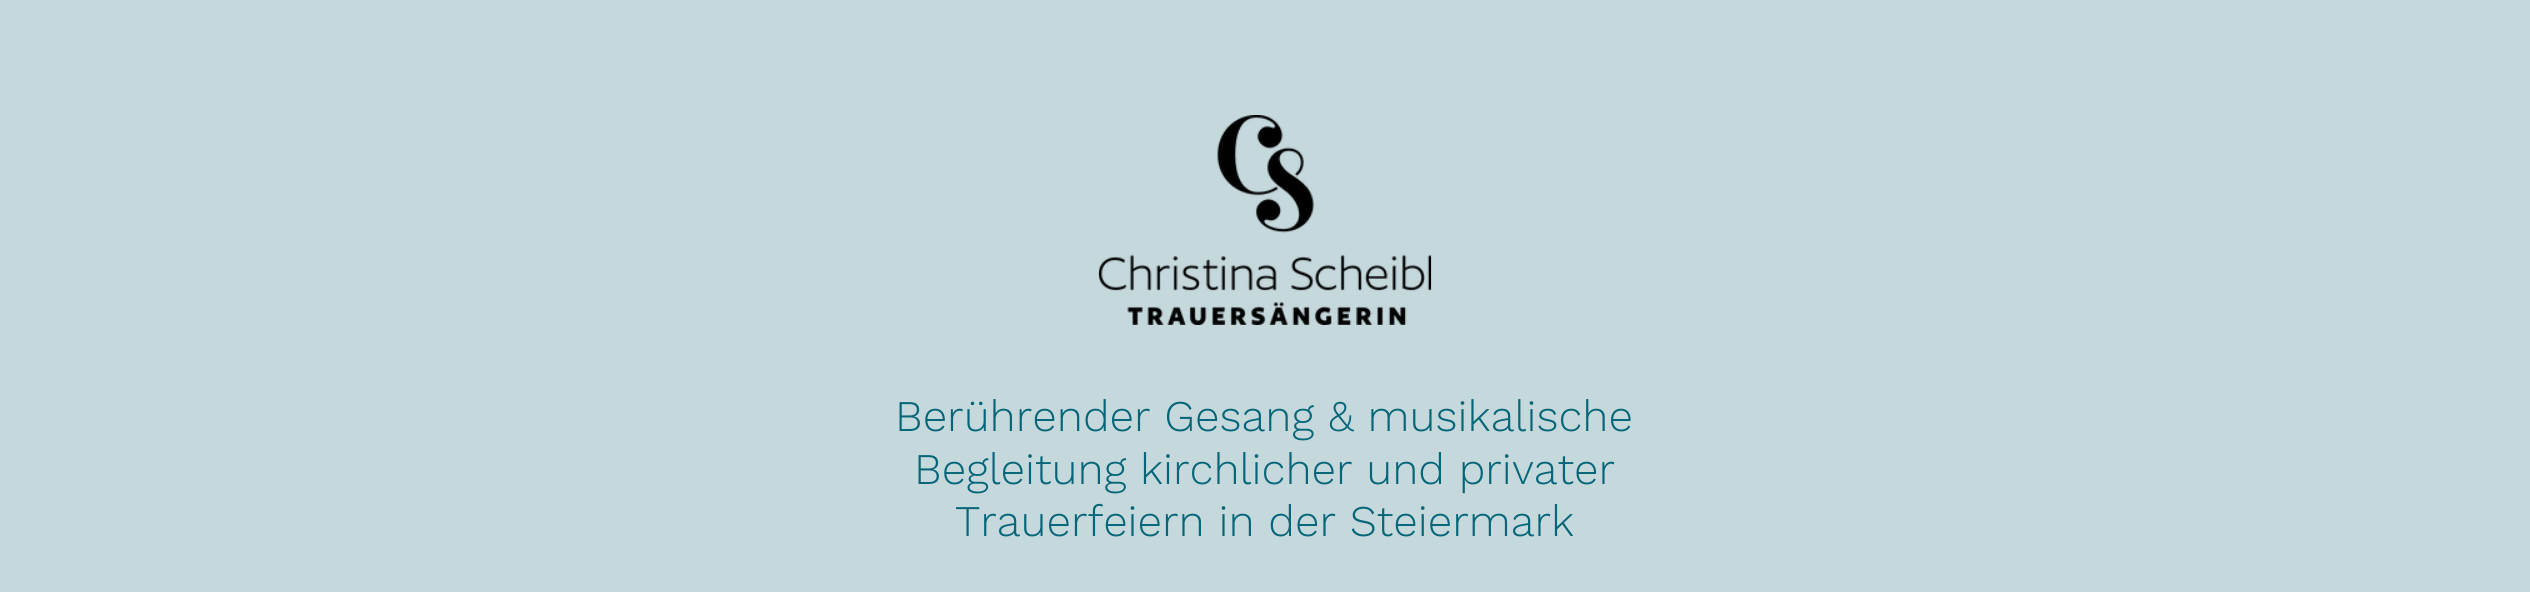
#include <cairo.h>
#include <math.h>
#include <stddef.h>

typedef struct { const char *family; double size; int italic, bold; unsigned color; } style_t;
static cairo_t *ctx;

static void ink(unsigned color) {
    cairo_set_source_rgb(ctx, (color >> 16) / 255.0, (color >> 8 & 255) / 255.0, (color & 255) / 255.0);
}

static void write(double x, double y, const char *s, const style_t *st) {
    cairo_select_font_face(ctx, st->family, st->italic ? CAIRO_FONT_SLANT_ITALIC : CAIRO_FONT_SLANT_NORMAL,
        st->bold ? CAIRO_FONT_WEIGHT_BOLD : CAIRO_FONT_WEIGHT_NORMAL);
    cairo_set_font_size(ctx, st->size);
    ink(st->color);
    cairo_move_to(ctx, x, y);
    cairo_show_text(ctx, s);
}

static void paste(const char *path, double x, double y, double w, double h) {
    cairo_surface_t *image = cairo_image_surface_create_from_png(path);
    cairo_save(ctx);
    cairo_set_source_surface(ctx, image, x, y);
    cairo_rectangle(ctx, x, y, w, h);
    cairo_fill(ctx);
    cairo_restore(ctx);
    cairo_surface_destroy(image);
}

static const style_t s1 = {"Work Sans Light", 43.75, 0, 0, 0x066679};

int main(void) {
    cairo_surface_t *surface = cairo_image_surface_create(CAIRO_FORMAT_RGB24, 2530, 592);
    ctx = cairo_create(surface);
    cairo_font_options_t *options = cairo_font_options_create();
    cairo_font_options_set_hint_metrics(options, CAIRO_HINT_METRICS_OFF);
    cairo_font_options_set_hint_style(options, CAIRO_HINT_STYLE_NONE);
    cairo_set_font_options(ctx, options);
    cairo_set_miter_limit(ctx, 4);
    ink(0xc5d8dc);
    cairo_paint(ctx);
    paste("pic1.png", 1098, 115, 334, 210);
    write(895, 431, "Berührender Gesang & musikalische", &s1);
    write(914, 484, "Begleitung kirchlicher und privater", &s1);
    write(955, 536, "Trauerfeiern in der Steiermark", &s1);
    cairo_surface_write_to_png(surface, "screenshot.png");
    cairo_font_options_destroy(options);
    cairo_destroy(ctx);
    cairo_surface_destroy(surface);
    return 0;
}
